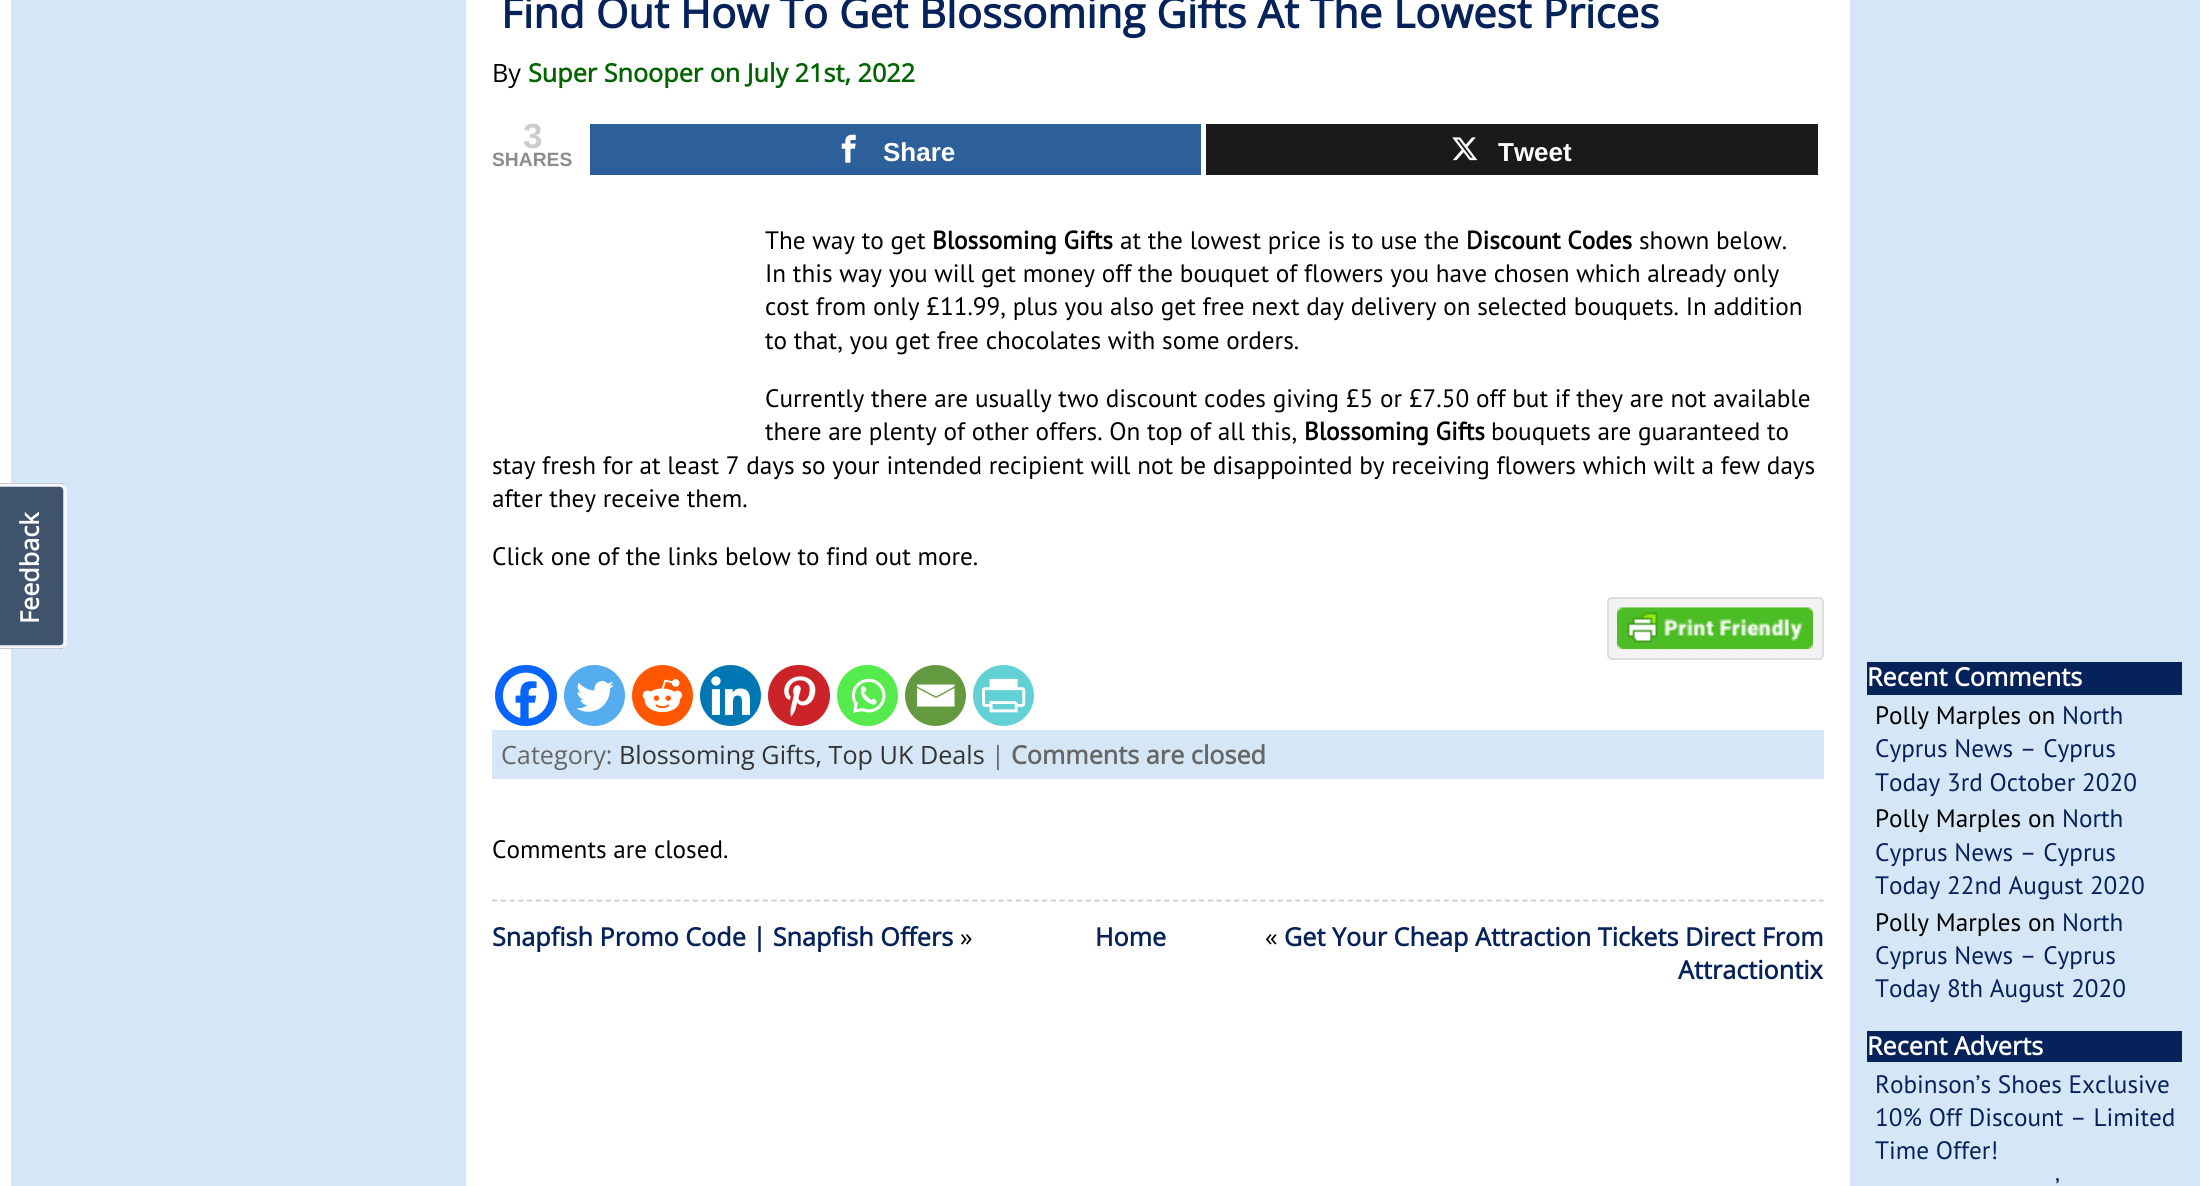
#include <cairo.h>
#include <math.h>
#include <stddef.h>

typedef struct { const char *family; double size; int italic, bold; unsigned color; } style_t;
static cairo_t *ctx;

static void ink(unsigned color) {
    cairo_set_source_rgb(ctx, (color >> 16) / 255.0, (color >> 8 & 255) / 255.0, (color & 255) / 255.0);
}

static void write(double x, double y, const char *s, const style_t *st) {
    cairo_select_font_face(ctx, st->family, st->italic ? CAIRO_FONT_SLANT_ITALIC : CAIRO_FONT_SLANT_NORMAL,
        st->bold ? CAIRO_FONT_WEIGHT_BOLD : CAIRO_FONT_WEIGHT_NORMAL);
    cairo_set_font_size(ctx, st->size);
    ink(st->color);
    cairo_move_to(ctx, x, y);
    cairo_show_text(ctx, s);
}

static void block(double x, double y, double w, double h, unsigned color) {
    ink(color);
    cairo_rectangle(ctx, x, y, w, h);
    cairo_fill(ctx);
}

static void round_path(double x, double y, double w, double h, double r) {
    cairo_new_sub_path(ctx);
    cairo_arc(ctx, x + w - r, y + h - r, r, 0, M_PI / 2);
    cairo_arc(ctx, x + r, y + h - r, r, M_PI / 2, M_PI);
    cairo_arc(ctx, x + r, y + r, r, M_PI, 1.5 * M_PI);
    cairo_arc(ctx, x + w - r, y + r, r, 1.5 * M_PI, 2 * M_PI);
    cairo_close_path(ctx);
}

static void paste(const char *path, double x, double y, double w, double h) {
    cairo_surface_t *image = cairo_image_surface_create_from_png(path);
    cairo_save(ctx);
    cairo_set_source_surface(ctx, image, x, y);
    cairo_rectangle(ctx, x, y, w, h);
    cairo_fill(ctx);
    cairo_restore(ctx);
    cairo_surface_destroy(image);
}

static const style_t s1 = {"Open Sans", 25.2, 0, 1, 0xffffff};
static const style_t s2 = {"Open Sans", 42, 0, 1, 0x05225b};
static const style_t s3 = {"Open Sans", 25.2, 0, 0, 0x000000};
static const style_t s4 = {"Open Sans", 25.2, 0, 1, 0x006400};
static const style_t s5 = {"Liberation Sans", 35, 0, 1, 0xcccccc};
static const style_t s6 = {"Liberation Sans", 19.25, 0, 1, 0x8a8c8e};
static const style_t s7 = {"Liberation Sans", 26, 0, 1, 0xffffff};
static const style_t s8 = {"PT Sans", 25.2, 0, 0, 0x000000};
static const style_t s9 = {"PT Sans", 25.2, 0, 1, 0x000000};
static const style_t s10 = {"Open Sans", 25.2, 0, 0, 0x666666};
static const style_t s11 = {"Open Sans", 25.2, 0, 0, 0x333333};
static const style_t s12 = {"Open Sans", 25.2, 0, 1, 0x666666};
static const style_t s13 = {"Open Sans", 25.2, 0, 1, 0x05225b};
static const style_t s14 = {"PT Sans", 25.2, 0, 0, 0x05225b};

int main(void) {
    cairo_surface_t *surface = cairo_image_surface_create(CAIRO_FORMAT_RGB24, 2210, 1186);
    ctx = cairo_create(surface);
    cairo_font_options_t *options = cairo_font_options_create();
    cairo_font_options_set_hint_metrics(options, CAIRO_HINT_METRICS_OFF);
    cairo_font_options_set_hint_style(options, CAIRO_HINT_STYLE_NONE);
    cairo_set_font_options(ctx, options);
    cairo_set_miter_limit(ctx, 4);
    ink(0xffffff);
    cairo_paint(ctx);
    block(11, 0, 455, 1186, 0xd5e7f7);
    cairo_set_source_rgba(ctx, 0.22, 0.298, 0.4, 0.95);
    cairo_new_path(ctx);
    cairo_move_to(ctx, -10, 642);
    cairo_line_to(ctx, -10, 490);
    cairo_curve_to(ctx, -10, 486, -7, 483, -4, 483);
    cairo_line_to(ctx, 60, 483);
    cairo_curve_to(ctx, 63, 483, 66, 486, 66, 490);
    cairo_line_to(ctx, 66, 642);
    cairo_curve_to(ctx, 66, 646, 63, 649, 60, 649);
    cairo_line_to(ctx, -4, 649);
    cairo_curve_to(ctx, -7, 649, -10, 646, -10, 642);
    cairo_close_path(ctx);
    cairo_fill(ctx);
    cairo_new_path(ctx);
    cairo_move_to(ctx, -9, 642);
    cairo_line_to(ctx, -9, 490.5);
    cairo_curve_to(ctx, -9, 487.5, -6.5, 485, -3.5, 485);
    cairo_line_to(ctx, 59.5, 485);
    cairo_curve_to(ctx, 62.5, 485, 65, 487.5, 65, 490.5);
    cairo_line_to(ctx, 65, 642);
    cairo_curve_to(ctx, 65, 645, 62.5, 647, 59.5, 647);
    cairo_line_to(ctx, -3.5, 647);
    cairo_curve_to(ctx, -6.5, 647, -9, 645, -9, 642);
    cairo_close_path(ctx);
    cairo_set_source_rgba(ctx, 1, 1, 1, 0.95);
    cairo_set_line_width(ctx, 3.5);
    cairo_stroke(ctx);
    cairo_save(ctx);
    cairo_translate(ctx, 39, 624);
    cairo_rotate(ctx, -90 * M_PI / 180);
    write(0, 0, "Feedback", &s1);
    cairo_restore(ctx);
    write(501, 28, "Find Out How To Get Blossoming Gifts At The Lowest Prices", &s2);
    write(492, 82, "By", &s3);
    write(528, 82, "Super Snooper on July 21st, 2022", &s4);
    write(523, 148, "3", &s5);
    write(492, 166, "SHARES", &s6);
    block(590, 124, 611, 51, 0x2d5f9a);
    paste("pic1.png", 841, 134, 15, 29);
    write(883, 161, "Share", &s7);
    block(1206, 124, 612, 51, 0x1a1a1a);
    paste("pic2.png", 1452, 137, 26, 24);
    write(1498, 161, "Tweet", &s7);
    write(765, 249, "The way to get", &s8);
    write(932, 249, "Blossoming Gifts", &s9);
    write(1120, 249, "at the lowest price is to use the", &s8);
    write(1466, 249, "Discount Codes", &s9);
    write(1639, 249, "shown below.", &s8);
    write(765, 282, "In this way you will get money off the bouquet of flowers you have chosen which already only", &s8);
    write(765, 315, "cost from only £11.99, plus you also get free next day delivery on selected bouquets. In addition", &s8);
    write(765, 349, "to that, you get free chocolates with some orders.", &s8);
    write(765, 407, "Currently there are usually two discount codes giving £5 or £7.50 off but if they are not available", &s8);
    write(765, 440, "there are plenty of other offers. On top of all this,", &s8);
    write(1304, 440, "Blossoming Gifts", &s9);
    write(1491, 440, "bouquets are guaranteed to", &s8);
    write(492, 474, "stay fresh for at least 7 days so your intended recipient will not be disappointed by receiving flowers which wilt a few days", &s8);
    write(492, 507, "after they receive them.", &s8);
    write(492, 565, "Click one of the links below to find out more.", &s8);
    ink(0xf3f3f3);
    round_path(1608, 598, 215, 61, 4);
    cairo_fill_preserve(ctx);
    ink(0xdddddd);
    cairo_set_line_width(ctx, 2);
    cairo_stroke(ctx);
    paste("pic3.png", 1617, 607, 196, 43);
    ink(0x0765fe);
    round_path(495, 665, 62, 61, 30.5);
    cairo_fill(ctx);
    paste("pic4.png", 502, 672, 47, 47);
    ink(0x55acee);
    cairo_arc(ctx, 594.5, 695.5, 30.5, 0, 2 * M_PI);
    cairo_fill(ctx);
    paste("pic5.png", 576, 681, 38, 31);
    ink(0xff5700);
    cairo_arc(ctx, 662.5, 695.5, 30.5, 0, 2 * M_PI);
    cairo_fill(ctx);
    paste("pic6.png", 642, 679, 41, 34);
    ink(0x0077b5);
    cairo_arc(ctx, 730.5, 695.5, 30.5, 0, 2 * M_PI);
    cairo_fill(ctx);
    paste("pic7.png", 711, 676, 39, 39);
    ink(0xcc2329);
    round_path(768, 665, 62, 61, 30.5);
    cairo_fill(ctx);
    paste("pic8.png", 784, 676, 32, 41);
    ink(0x55eb4c);
    cairo_arc(ctx, 867.5, 695.5, 30.5, 0, 2 * M_PI);
    cairo_fill(ctx);
    paste("pic9.png", 851, 678, 35, 35);
    ink(0x649a3f);
    cairo_arc(ctx, 935.5, 695.5, 30.5, 0, 2 * M_PI);
    cairo_fill(ctx);
    ink(0xffffff);
    cairo_new_path(ctx);
    cairo_move_to(ctx, 915.5, 684.5);
    cairo_line_to(ctx, 954.5, 684.5);
    cairo_line_to(ctx, 954.5, 686.5);
    cairo_line_to(ctx, 936, 696.5);
    cairo_line_to(ctx, 917, 686.5);
    cairo_line_to(ctx, 917, 684.5);
    cairo_move_to(ctx, 917, 688);
    cairo_line_to(ctx, 936, 698);
    cairo_line_to(ctx, 954.5, 688);
    cairo_line_to(ctx, 954.5, 706.5);
    cairo_line_to(ctx, 917, 706.5);
    cairo_line_to(ctx, 917, 688);
    cairo_fill(ctx);
    ink(0x61d1d5);
    cairo_arc(ctx, 1003.5, 695.5, 30.5, 0, 2 * M_PI);
    cairo_fill(ctx);
    paste("pic10.png", 982, 678, 44, 35);
    block(492, 730, 1332, 49, 0xd5e7f7);
    write(501, 764, "Category:", &s10);
    write(619, 764, "Blossoming Gifts, Top UK Deals", &s11);
    write(991, 764, "|", &s10);
    write(1011, 764, "Comments are closed", &s12);
    write(492, 858, "Comments are closed.", &s8);
    cairo_new_path(ctx);
    cairo_move_to(ctx, 492, 900.5);
    cairo_line_to(ctx, 1823.5, 900.5);
    ink(0xcccccc);
    cairo_set_line_width(ctx, 1.8);
    cairo_set_dash(ctx, (double[]){5.25, 3.48}, 2, 0);
    cairo_stroke(ctx);
    write(492, 946, "Snapfish Promo Code | Snapfish Offers", &s13);
    write(960, 946, "»", &s3);
    write(1095, 946, "Home", &s13);
    write(1265, 946, "«", &s3);
    write(1284, 946, "Get Your Cheap Attraction Tickets Direct From", &s13);
    write(1678, 979, "Attractiontix", &s13);
    block(1850, 0, 350, 1186, 0xd5e7f7);
    block(1867, 662, 315, 33, 0x05225b);
    write(1867, 686, "Recent Comments", &s1);
    write(1875, 724, "Polly Marples on", &s8);
    write(2062, 724, "North", &s14);
    write(1875, 757, "Cyprus News – Cyprus", &s14);
    write(1875, 791, "Today 3rd October 2020", &s14);
    write(1875, 827, "Polly Marples on", &s8);
    write(2062, 827, "North", &s14);
    write(1875, 861, "Cyprus News – Cyprus", &s14);
    write(1875, 894, "Today 22nd August 2020", &s14);
    write(1875, 931, "Polly Marples on", &s8);
    write(2062, 931, "North", &s14);
    write(1875, 964, "Cyprus News – Cyprus", &s14);
    write(1875, 997, "Today 8th August 2020", &s14);
    block(1867, 1031, 315, 31, 0x05225b);
    write(1867, 1055, "Recent Adverts", &s1);
    write(1875, 1093, "Robinson’s Shoes Exclusive", &s14);
    write(1875, 1126, "10% Off Discount – Limited", &s14);
    write(1875, 1159, "Time Offer!", &s14);
    write(2055, 1196, "’", &s14);
    cairo_surface_write_to_png(surface, "screenshot.png");
    cairo_font_options_destroy(options);
    cairo_destroy(ctx);
    cairo_surface_destroy(surface);
    return 0;
}
